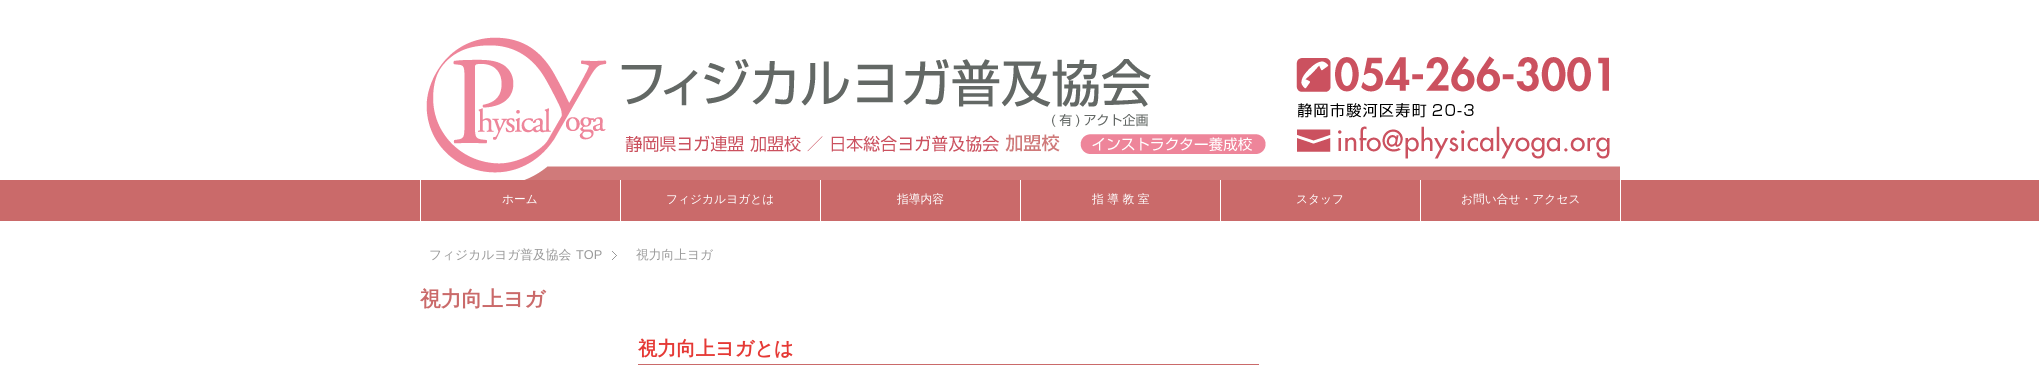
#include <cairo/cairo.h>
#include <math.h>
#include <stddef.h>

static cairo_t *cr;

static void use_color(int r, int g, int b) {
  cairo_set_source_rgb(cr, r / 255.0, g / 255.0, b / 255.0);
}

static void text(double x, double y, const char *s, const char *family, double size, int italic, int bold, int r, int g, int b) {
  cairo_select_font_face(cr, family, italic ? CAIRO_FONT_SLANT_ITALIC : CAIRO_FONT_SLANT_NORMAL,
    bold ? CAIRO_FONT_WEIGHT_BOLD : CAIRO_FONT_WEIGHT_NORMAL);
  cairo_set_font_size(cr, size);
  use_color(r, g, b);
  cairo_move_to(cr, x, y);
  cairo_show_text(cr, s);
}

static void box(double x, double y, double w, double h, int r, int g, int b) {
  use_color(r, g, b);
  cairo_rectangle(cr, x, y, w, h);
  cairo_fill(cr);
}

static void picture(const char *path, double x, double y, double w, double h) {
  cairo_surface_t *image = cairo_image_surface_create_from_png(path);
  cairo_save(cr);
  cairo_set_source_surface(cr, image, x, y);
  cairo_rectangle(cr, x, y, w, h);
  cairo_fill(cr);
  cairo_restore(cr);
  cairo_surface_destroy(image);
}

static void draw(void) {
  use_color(255, 255, 255);
  cairo_paint(cr);
  picture("img_01.png", 426, 37, 1194, 143);
  box(0, 180, 2039, 41, 202, 106, 106);
  box(420, 180, 1, 41, 255, 255, 255);
  box(620, 180, 1, 41, 255, 255, 255);
  box(820, 180, 1, 41, 255, 255, 255);
  box(1020, 180, 1, 41, 255, 255, 255);
  box(1220, 180, 1, 41, 255, 255, 255);
  box(1420, 180, 1, 41, 255, 255, 255);
  box(1620, 180, 1, 41, 255, 255, 255);
  picture("img_02.png", 612, 251, 5, 9);
  box(638, 364, 621, 1, 202, 106, 106);
  text(502, 203, "ホーム", "WenQuanYi Zen Hei Medium", 11.75, 0, 0, 255, 255, 255);
  text(666, 203, "フィジカルヨガとは", "WenQuanYi Zen Hei Medium", 11.75, 0, 0, 255, 255, 255);
  text(897, 203, "指導内容", "WenQuanYi Zen Hei Medium", 11.75, 0, 0, 255, 255, 255);
  text(1092, 203, "指 導 教 室", "WenQuanYi Zen Hei Medium", 11.75, 0, 0, 255, 255, 255);
  text(1296, 203, "スタッフ", "WenQuanYi Zen Hei Medium", 11.75, 0, 0, 255, 255, 255);
  text(1461, 203, "お問い合せ・アクセス", "WenQuanYi Zen Hei Medium", 11.75, 0, 0, 255, 255, 255);
  text(429, 259, "フィジカルヨガ普及協会", "WenQuanYi Zen Hei Medium", 12.75, 0, 0, 153, 153, 153);
  text(576, 259, "TOP", "Liberation Sans", 12.75, 0, 0, 153, 153, 153);
  text(636, 259, "視力向上ヨガ", "WenQuanYi Zen Hei Medium", 12.75, 0, 0, 153, 153, 153);
  text(420, 306, "視力向上ヨガ", "WenQuanYi Zen Hei", 20.75, 0, 1, 202, 106, 106);
  text(638, 355, "視力向上ヨガとは", "WenQuanYi Zen Hei", 19.25, 0, 1, 229, 57, 53);
}

int main(void) {
  cairo_surface_t *surface = cairo_image_surface_create(CAIRO_FORMAT_RGB24, 2039, 373);
  cr = cairo_create(surface);
  cairo_font_options_t *options = cairo_font_options_create();
  cairo_font_options_set_hint_metrics(options, CAIRO_HINT_METRICS_OFF);
  cairo_font_options_set_hint_style(options, CAIRO_HINT_STYLE_NONE);
  cairo_set_font_options(cr, options);
  cairo_set_miter_limit(cr, 4);
  draw();
  cairo_surface_write_to_png(surface, "out.png");
  cairo_font_options_destroy(options);
  cairo_destroy(cr);
  cairo_surface_destroy(surface);
  return 0;
}
